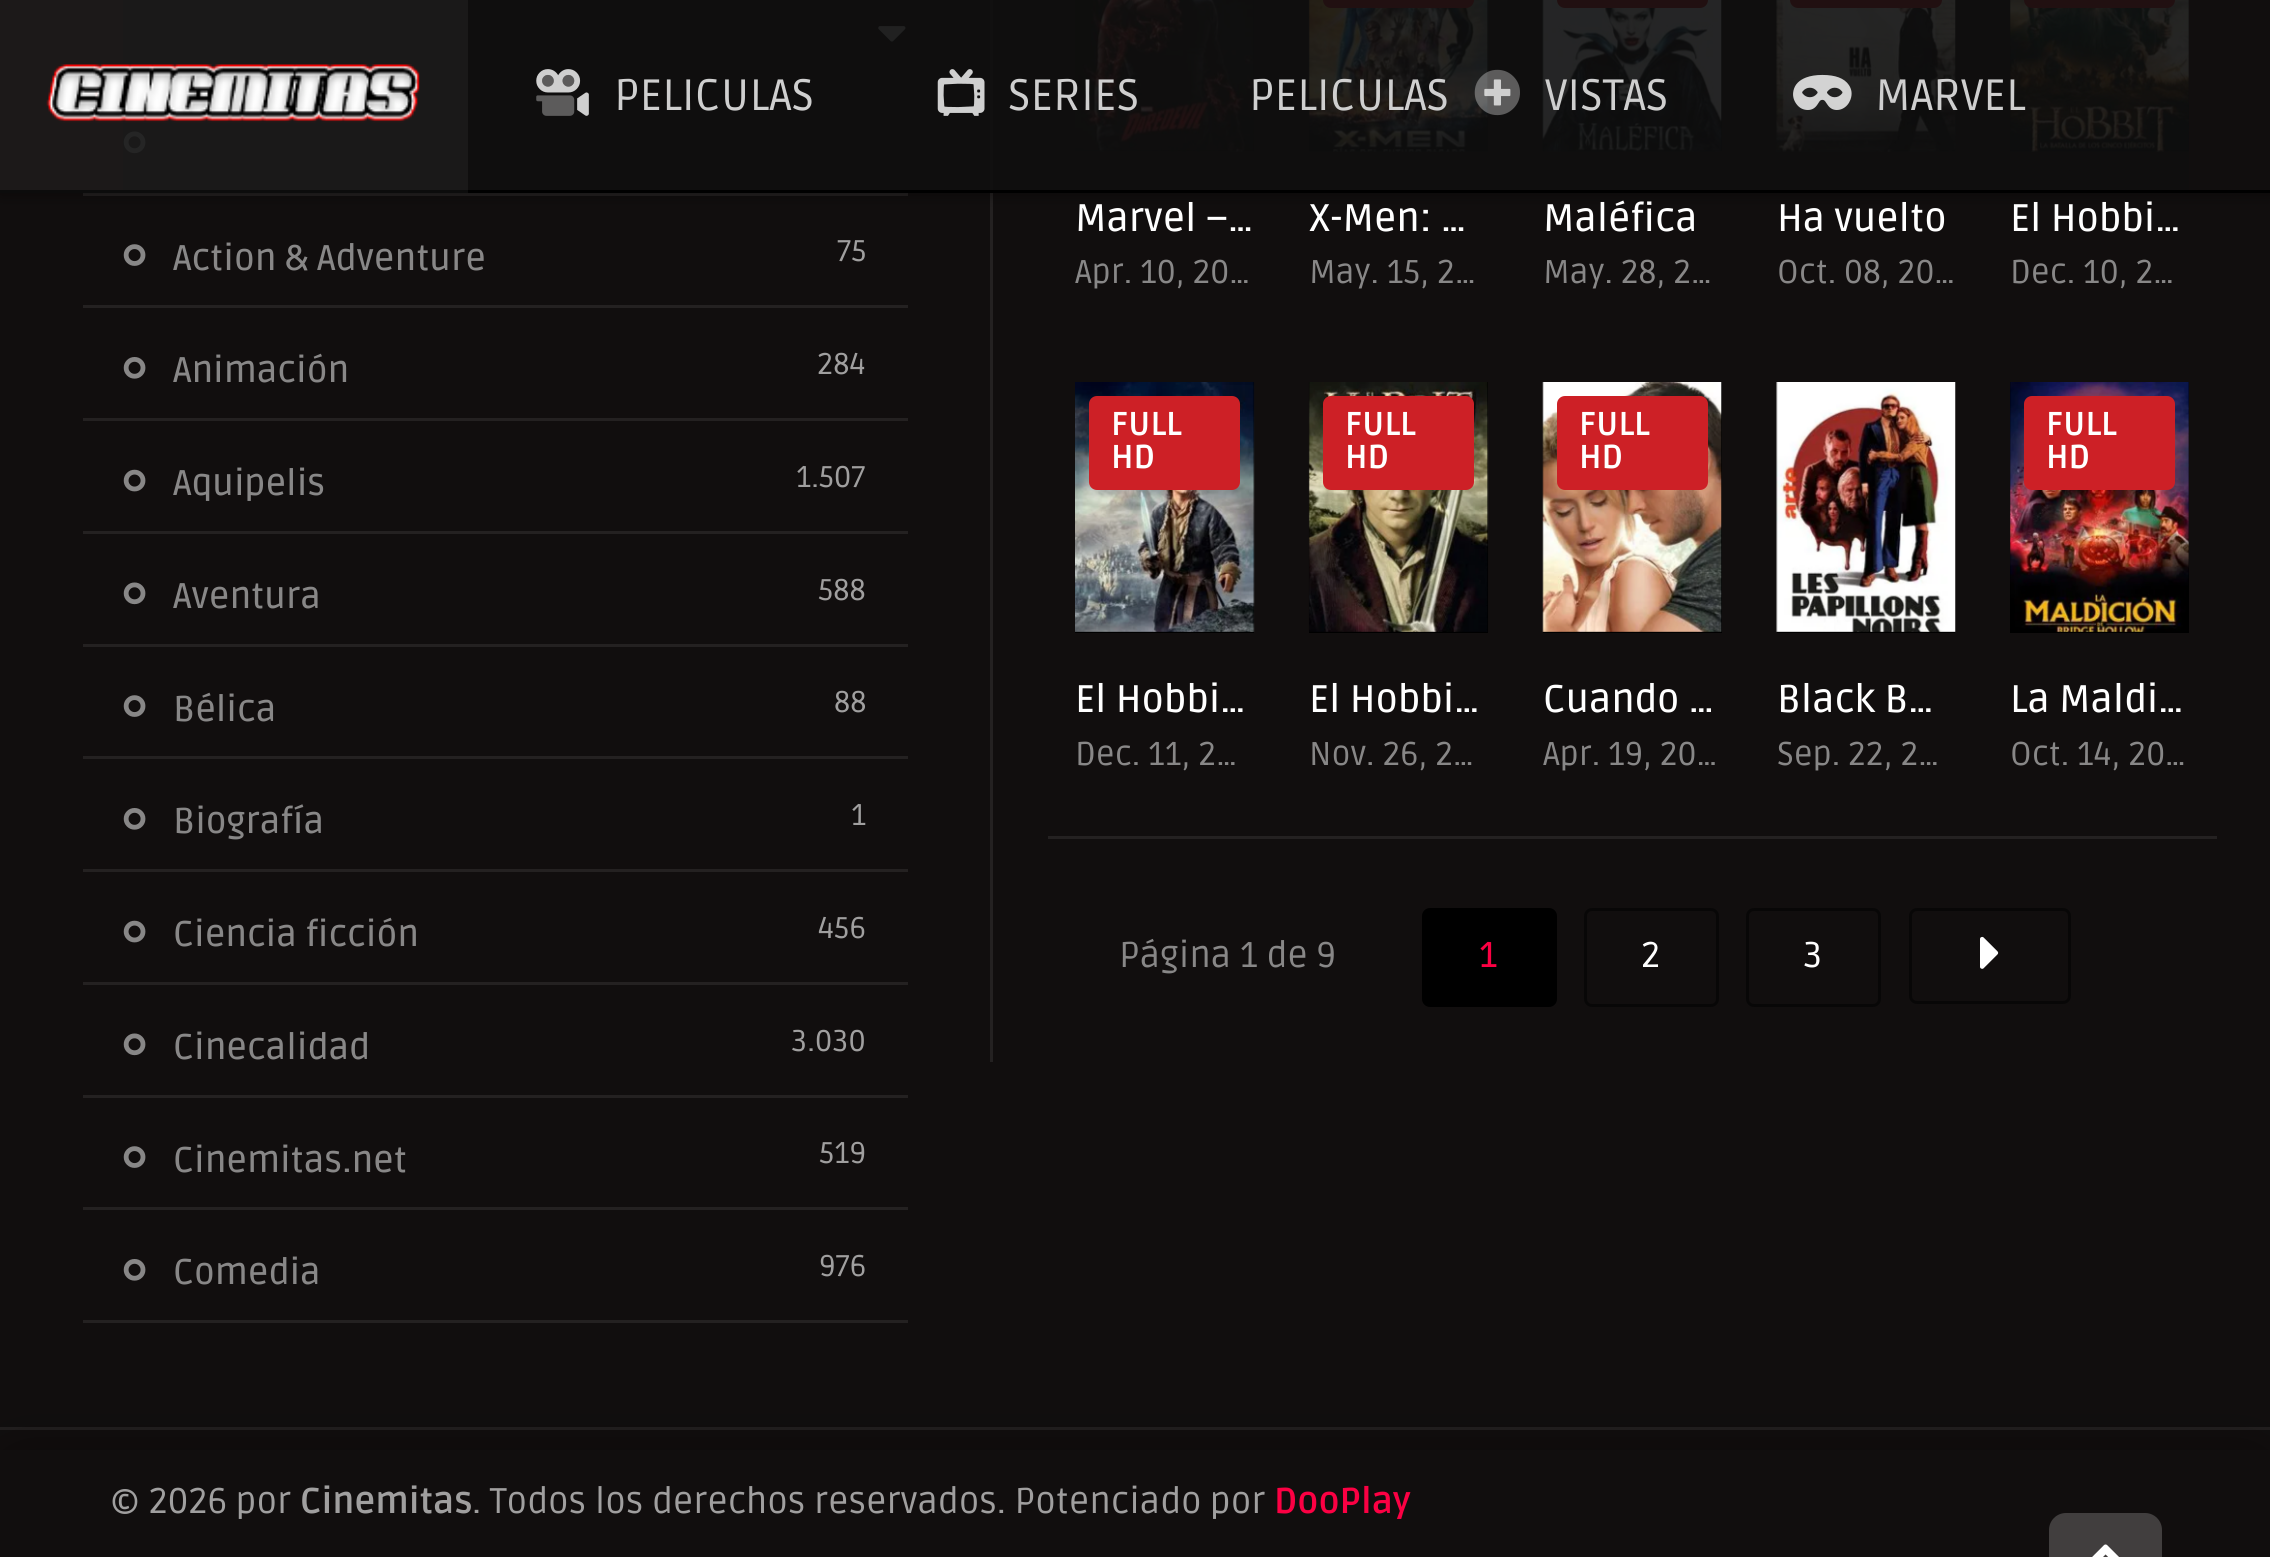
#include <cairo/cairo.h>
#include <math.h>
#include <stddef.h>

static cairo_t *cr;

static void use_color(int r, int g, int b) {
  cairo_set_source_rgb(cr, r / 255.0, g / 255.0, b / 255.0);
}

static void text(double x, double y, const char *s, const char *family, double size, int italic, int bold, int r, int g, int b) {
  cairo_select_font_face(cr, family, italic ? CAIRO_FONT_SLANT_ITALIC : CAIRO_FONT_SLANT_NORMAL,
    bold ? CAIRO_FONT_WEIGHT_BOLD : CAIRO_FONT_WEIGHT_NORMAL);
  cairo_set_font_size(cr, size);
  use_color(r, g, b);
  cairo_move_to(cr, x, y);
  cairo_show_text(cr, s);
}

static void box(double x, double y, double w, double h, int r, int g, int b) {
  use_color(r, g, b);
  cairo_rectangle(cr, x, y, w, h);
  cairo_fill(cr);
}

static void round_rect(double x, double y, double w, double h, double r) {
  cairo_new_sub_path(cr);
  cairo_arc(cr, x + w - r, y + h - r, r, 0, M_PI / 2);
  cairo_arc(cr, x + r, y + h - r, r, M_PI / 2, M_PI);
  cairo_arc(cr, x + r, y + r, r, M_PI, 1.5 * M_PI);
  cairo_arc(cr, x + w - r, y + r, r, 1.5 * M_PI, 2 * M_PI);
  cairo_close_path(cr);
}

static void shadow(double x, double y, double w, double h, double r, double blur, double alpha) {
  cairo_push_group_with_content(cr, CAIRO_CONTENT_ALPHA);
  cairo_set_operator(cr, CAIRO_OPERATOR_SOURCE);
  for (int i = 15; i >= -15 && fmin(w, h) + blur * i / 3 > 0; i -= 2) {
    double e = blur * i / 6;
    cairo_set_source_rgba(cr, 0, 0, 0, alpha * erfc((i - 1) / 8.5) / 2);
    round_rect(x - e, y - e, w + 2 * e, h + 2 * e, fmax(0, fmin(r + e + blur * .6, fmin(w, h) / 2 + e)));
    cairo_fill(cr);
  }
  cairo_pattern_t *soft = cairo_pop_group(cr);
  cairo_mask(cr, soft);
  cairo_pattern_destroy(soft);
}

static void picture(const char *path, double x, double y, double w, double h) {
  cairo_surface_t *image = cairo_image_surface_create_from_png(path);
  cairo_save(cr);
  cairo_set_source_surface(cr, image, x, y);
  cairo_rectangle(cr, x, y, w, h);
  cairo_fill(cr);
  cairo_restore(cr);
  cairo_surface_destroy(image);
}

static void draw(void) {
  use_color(17, 14, 14);
  cairo_paint(cr);
  picture("img_08.png", 878, 26, 28, 16);
  box(83, 193, 825, 3, 36, 33, 33);
  picture("img_09.png", 123, 131, 23, 23);
  box(990, 0, 3, 1062, 36, 33, 33);
  box(1075, 0, 179, 151, 0, 0, 0);
  picture("img_13.png", 1075, 0, 179, 152);
  box(1309, 0, 179, 151, 0, 0, 0);
  picture("img_14.png", 1308, 0, 181, 152);
  use_color(205, 32, 38);
  round_rect(1323, -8, 151, 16, 8);
  cairo_fill(cr);
  box(1543, 0, 179, 151, 0, 0, 0);
  picture("img_15.png", 1542, 0, 180, 152);
  use_color(205, 32, 38);
  round_rect(1557, -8, 151, 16, 8);
  cairo_fill(cr);
  box(1777, 0, 178, 151, 0, 0, 0);
  picture("img_16.png", 1776, 0, 180, 152);
  use_color(205, 32, 38);
  round_rect(1790, -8, 152, 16, 8);
  cairo_fill(cr);
  box(2010, 0, 179, 151, 0, 0, 0);
  picture("img_17.png", 2010, 0, 179, 152);
  use_color(205, 32, 38);
  round_rect(2024, -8, 151, 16, 8);
  cairo_fill(cr);
  cairo_save(cr);
  cairo_rectangle(cr, 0, 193, 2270, 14);
  cairo_clip(cr);
  use_color(0, 0, 0);
  shadow(0, 3, 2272, 192, 0, 7, 0.4);
  cairo_restore(cr);
  cairo_set_source_rgba(cr, 0.059, 0.059, 0.059, 0.9);
  cairo_rectangle(cr, 123, 0, 2066, 190);
  cairo_fill(cr);
  box(0, 190, 2270, 3, 0, 0, 0);
  cairo_set_source_rgba(cr, 1, 1, 1, 0.05);
  cairo_rectangle(cr, 0, 0, 468, 193);
  cairo_fill(cr);
  picture("img_01.png", 46, 64, 374, 59);
  picture("img_02.png", 536, 69, 53, 47);
  picture("img_03.png", 536, 75, 39, 41);
  picture("img_04.png", 937, 69, 48, 47);
  picture("img_06.png", 1484, 79, 27, 27);
  picture("img_05.png", 1474, 69, 46, 47);
  picture("img_07.png", 1793, 74, 59, 36);
  box(0, 1427, 2270, 3, 34, 31, 31);
  box(83, 305, 825, 3, 36, 33, 33);
  picture("img_10.png", 123, 244, 23, 22);
  box(83, 418, 825, 3, 36, 33, 33);
  picture("img_11.png", 123, 357, 23, 22);
  box(83, 531, 825, 3, 36, 33, 33);
  picture("img_12.png", 123, 469, 23, 23);
  box(83, 644, 825, 3, 36, 33, 33);
  picture("img_09.png", 123, 582, 23, 23);
  box(83, 756, 825, 3, 36, 33, 33);
  picture("img_10.png", 123, 695, 23, 22);
  box(83, 869, 825, 3, 36, 33, 33);
  picture("img_11.png", 123, 808, 23, 22);
  box(83, 982, 825, 3, 36, 33, 33);
  picture("img_12.png", 123, 920, 23, 23);
  box(83, 1095, 825, 3, 36, 33, 33);
  picture("img_09.png", 123, 1033, 23, 23);
  box(83, 1207, 825, 3, 36, 33, 33);
  picture("img_10.png", 123, 1146, 23, 22);
  box(83, 1320, 825, 3, 36, 33, 33);
  picture("img_11.png", 123, 1259, 23, 22);
  box(1048, 836, 1169, 3, 36, 33, 33);
  box(1075, 382, 179, 251, 0, 0, 0);
  picture("img_18.png", 1075, 382, 180, 250);
  use_color(205, 32, 38);
  round_rect(1089, 396, 151, 94, 8);
  cairo_fill(cr);
  box(1309, 382, 179, 251, 0, 0, 0);
  picture("img_19.png", 1308, 382, 181, 250);
  use_color(205, 32, 38);
  round_rect(1323, 396, 151, 94, 8);
  cairo_fill(cr);
  box(1543, 382, 179, 251, 0, 0, 0);
  picture("img_20.png", 1542, 382, 180, 250);
  use_color(205, 32, 38);
  round_rect(1557, 396, 151, 94, 8);
  cairo_fill(cr);
  box(1777, 382, 178, 251, 0, 0, 0);
  picture("img_21.png", 1776, 382, 180, 250);
  box(2010, 382, 179, 251, 0, 0, 0);
  picture("img_22.png", 2010, 382, 179, 250);
  use_color(205, 32, 38);
  round_rect(2024, 396, 151, 94, 8);
  cairo_fill(cr);
  use_color(0, 0, 0);
  round_rect(1423.5, 909.5, 132, 96, 6.5);
  cairo_fill_preserve(cr);
  cairo_set_line_width(cr, 3);
  cairo_stroke(cr);
  round_rect(1585.5, 909.5, 132, 96, 6.5);
  use_color(8, 7, 7);
  cairo_stroke(cr);
  round_rect(1747.5, 909.5, 132, 96, 6.5);
  cairo_stroke(cr);
  round_rect(1910.5, 909.5, 159, 93, 6.5);
  cairo_stroke(cr);
  picture("img_23.png", 1980, 936, 19, 33);
  use_color(0, 0, 0);
  shadow(19, 1477, 2233, 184, 0, 34.5, 0.7);
  box(0, 1450, 2270, 107, 17, 14, 14);
  use_color(65, 62, 62);
  round_rect(2049, 1513, 113, 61, 17);
  cairo_fill(cr);
  picture("img_24.png", 2092, 1544, 27, 13);
  text(614, 110, "PELICULAS", "Ruda", 44, 0, 0, 207, 207, 207);
  text(1008, 110, "SERIES", "Ruda", 44, 0, 0, 207, 207, 207);
  text(1249, 110, "PELICULAS", "Ruda", 44, 0, 0, 207, 207, 207);
  text(1545, 110, "VISTAS", "Ruda", 44, 0, 0, 207, 207, 207);
  text(1875, 110, "MARVEL", "Ruda", 44, 0, 0, 207, 207, 207);
  text(173, 270, "Action & Adventure", "Ruda Medium", 35.75, 0, 0, 136, 135, 135);
  text(837, 261, "75", "Ruda", 30, 0, 0, 160, 159, 159);
  text(173, 382, "Animación", "Ruda Medium", 35.75, 0, 0, 136, 135, 135);
  text(817, 374, "284", "Ruda", 30, 0, 0, 160, 159, 159);
  text(173, 495, "Aquipelis", "Ruda Medium", 35.75, 0, 0, 136, 135, 135);
  text(796, 487, "1.507", "Ruda", 30, 0, 0, 160, 159, 159);
  text(173, 608, "Aventura", "Ruda Medium", 35.75, 0, 0, 136, 135, 135);
  text(818, 600, "588", "Ruda", 30, 0, 0, 160, 159, 159);
  text(173, 721, "Bélica", "Ruda Medium", 35.75, 0, 0, 136, 135, 135);
  text(834, 712, "88", "Ruda", 30, 0, 0, 160, 159, 159);
  text(173, 833, "Biografía", "Ruda Medium", 35.75, 0, 0, 136, 135, 135);
  text(851, 825, "1", "Ruda", 30, 0, 0, 160, 159, 159);
  text(173, 946, "Ciencia ficción", "Ruda Medium", 35.75, 0, 0, 136, 135, 135);
  text(818, 938, "456", "Ruda", 30, 0, 0, 160, 159, 159);
  text(173, 1059, "Cinecalidad", "Ruda Medium", 35.75, 0, 0, 136, 135, 135);
  text(791, 1051, "3.030", "Ruda", 30, 0, 0, 160, 159, 159);
  text(173, 1172, "Cinemitas.net", "Ruda Medium", 35.75, 0, 0, 136, 135, 135);
  text(819, 1163, "519", "Ruda", 30, 0, 0, 160, 159, 159);
  text(173, 1284, "Comedia", "Ruda Medium", 35.75, 0, 0, 136, 135, 135);
  text(819, 1276, "976", "Ruda", 30, 0, 0, 160, 159, 159);
  text(1075, 231, "Marvel –…", "Ruda Medium", 38.5, 0, 0, 255, 255, 255);
  text(1075, 283, "Apr. 10, 20…", "Ruda", 33, 0, 0, 136, 135, 135);
  text(1309, 231, "X-Men: …", "Ruda Medium", 38.5, 0, 0, 255, 255, 255);
  text(1309, 283, "May. 15, 2…", "Ruda", 33, 0, 0, 136, 135, 135);
  text(1543, 231, "Maléfica", "Ruda Medium", 38.5, 0, 0, 255, 255, 255);
  text(1543, 283, "May. 28, 2…", "Ruda", 33, 0, 0, 136, 135, 135);
  text(1777, 231, "Ha vuelto", "Ruda Medium", 38.5, 0, 0, 255, 255, 255);
  text(1777, 283, "Oct. 08, 20…", "Ruda", 33, 0, 0, 136, 135, 135);
  text(2010, 231, "El Hobbi…", "Ruda Medium", 38.5, 0, 0, 255, 255, 255);
  text(2010, 283, "Dec. 10, 2…", "Ruda", 33, 0, 0, 136, 135, 135);
  text(1111, 435, "FULL", "Ruda", 33, 0, 1, 255, 255, 255);
  text(1111, 468, "HD", "Ruda", 33, 0, 1, 255, 255, 255);
  text(1075, 712, "El Hobbi…", "Ruda Medium", 38.5, 0, 0, 255, 255, 255);
  text(1075, 765, "Dec. 11, 2…", "Ruda", 33, 0, 0, 136, 135, 135);
  text(1345, 435, "FULL", "Ruda", 33, 0, 1, 255, 255, 255);
  text(1345, 468, "HD", "Ruda", 33, 0, 1, 255, 255, 255);
  text(1309, 712, "El Hobbi…", "Ruda Medium", 38.5, 0, 0, 255, 255, 255);
  text(1309, 765, "Nov. 26, 2…", "Ruda", 33, 0, 0, 136, 135, 135);
  text(1579, 435, "FULL", "Ruda", 33, 0, 1, 255, 255, 255);
  text(1579, 468, "HD", "Ruda", 33, 0, 1, 255, 255, 255);
  text(1543, 712, "Cuando …", "Ruda Medium", 38.5, 0, 0, 255, 255, 255);
  text(1543, 765, "Apr. 19, 20…", "Ruda", 33, 0, 0, 136, 135, 135);
  text(1777, 712, "Black B…", "Ruda Medium", 38.5, 0, 0, 255, 255, 255);
  text(1777, 765, "Sep. 22, 2…", "Ruda", 33, 0, 0, 136, 135, 135);
  text(2046, 435, "FULL", "Ruda", 33, 0, 1, 255, 255, 255);
  text(2046, 468, "HD", "Ruda", 33, 0, 1, 255, 255, 255);
  text(2010, 712, "La Maldi…", "Ruda Medium", 38.5, 0, 0, 255, 255, 255);
  text(2010, 765, "Oct. 14, 20…", "Ruda", 33, 0, 0, 136, 135, 135);
  text(1119, 967, "Página 1 de 9", "Ruda", 35.75, 0, 0, 136, 135, 135);
  text(1479, 967, "1", "Ruda Medium", 35.75, 0, 0, 252, 0, 67);
  text(1641, 967, "2", "Ruda", 35.75, 0, 0, 255, 255, 255);
  text(1803, 967, "3", "Ruda", 35.75, 0, 0, 255, 255, 255);
  text(110, 1513, "© 2026 por", "Ruda", 35.75, 0, 0, 160, 159, 159);
  text(300, 1513, "Cinemitas", "Ruda", 35.75, 0, 1, 160, 159, 159);
  text(472, 1513, ". Todos los derechos reservados. Potenciado por", "Ruda", 35.75, 0, 0, 160, 159, 159);
  text(1274, 1513, "DooPlay", "Ruda", 35.75, 0, 1, 252, 0, 67);
}

int main(void) {
  cairo_surface_t *surface = cairo_image_surface_create(CAIRO_FORMAT_RGB24, 2270, 1557);
  cr = cairo_create(surface);
  cairo_font_options_t *options = cairo_font_options_create();
  cairo_font_options_set_hint_metrics(options, CAIRO_HINT_METRICS_OFF);
  cairo_font_options_set_hint_style(options, CAIRO_HINT_STYLE_NONE);
  cairo_set_font_options(cr, options);
  cairo_set_miter_limit(cr, 4);
  draw();
  cairo_surface_write_to_png(surface, "out.png");
  cairo_font_options_destroy(options);
  cairo_destroy(cr);
  cairo_surface_destroy(surface);
  return 0;
}
